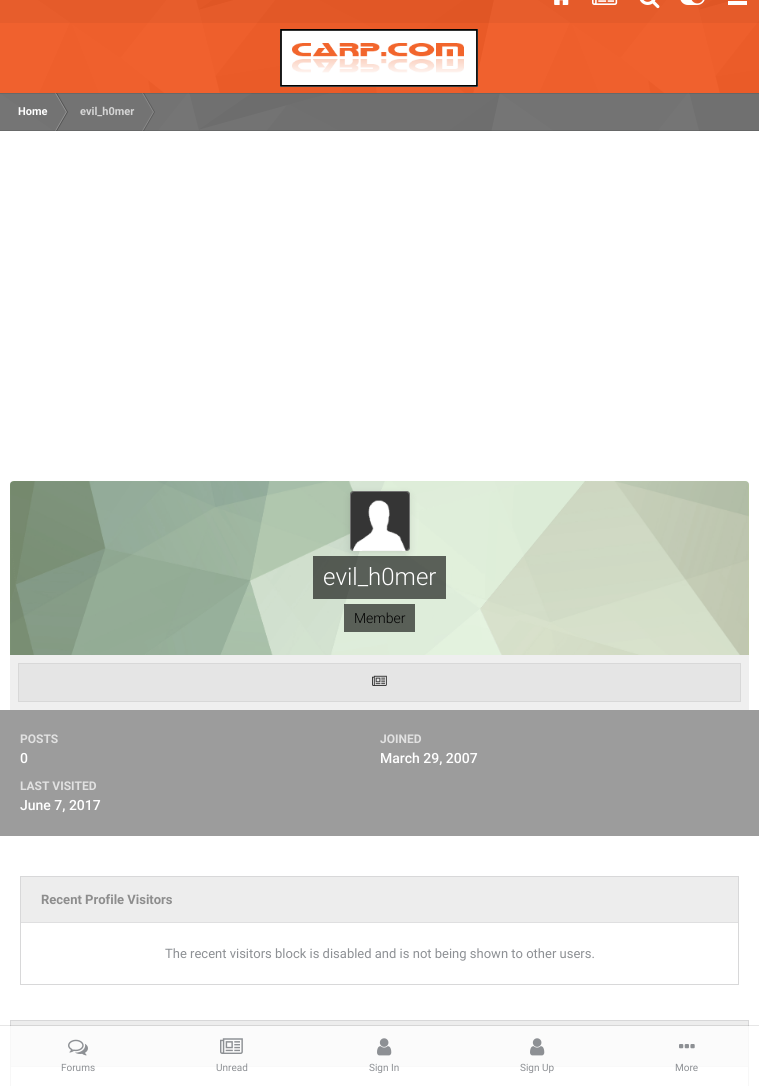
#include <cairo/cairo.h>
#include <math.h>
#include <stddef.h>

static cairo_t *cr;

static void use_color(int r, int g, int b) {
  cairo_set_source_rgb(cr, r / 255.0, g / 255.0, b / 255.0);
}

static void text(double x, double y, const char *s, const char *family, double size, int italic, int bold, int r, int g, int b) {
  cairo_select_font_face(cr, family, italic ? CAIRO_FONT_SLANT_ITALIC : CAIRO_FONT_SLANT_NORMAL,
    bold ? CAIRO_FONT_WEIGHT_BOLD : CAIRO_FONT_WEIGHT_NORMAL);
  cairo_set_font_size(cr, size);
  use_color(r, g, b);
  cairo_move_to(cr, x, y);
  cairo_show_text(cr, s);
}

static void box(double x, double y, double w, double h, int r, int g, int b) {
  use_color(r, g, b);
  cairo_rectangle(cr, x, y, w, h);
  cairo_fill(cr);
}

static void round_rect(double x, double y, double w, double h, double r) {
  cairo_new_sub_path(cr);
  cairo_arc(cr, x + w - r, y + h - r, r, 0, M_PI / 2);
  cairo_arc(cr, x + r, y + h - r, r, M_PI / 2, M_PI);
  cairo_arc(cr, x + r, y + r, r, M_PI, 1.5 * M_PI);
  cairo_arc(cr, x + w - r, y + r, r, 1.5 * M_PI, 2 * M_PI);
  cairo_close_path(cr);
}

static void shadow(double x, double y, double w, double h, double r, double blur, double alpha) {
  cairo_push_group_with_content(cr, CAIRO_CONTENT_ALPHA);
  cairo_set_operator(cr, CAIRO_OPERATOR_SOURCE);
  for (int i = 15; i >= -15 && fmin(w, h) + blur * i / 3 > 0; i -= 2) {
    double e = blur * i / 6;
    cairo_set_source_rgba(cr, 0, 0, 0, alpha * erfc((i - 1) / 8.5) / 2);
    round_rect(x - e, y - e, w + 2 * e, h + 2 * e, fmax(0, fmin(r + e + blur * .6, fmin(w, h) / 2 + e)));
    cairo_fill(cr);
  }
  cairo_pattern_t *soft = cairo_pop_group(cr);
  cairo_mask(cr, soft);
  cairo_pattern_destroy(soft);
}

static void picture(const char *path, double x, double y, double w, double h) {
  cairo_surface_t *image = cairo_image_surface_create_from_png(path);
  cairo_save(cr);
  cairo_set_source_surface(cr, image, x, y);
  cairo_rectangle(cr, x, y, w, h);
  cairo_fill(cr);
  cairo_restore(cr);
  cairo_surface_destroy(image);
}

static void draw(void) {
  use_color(255, 255, 255);
  cairo_paint(cr);
  box(0, 0, 759, 93, 241, 91, 37);
  picture("img_01.png", 0, 0, 759, 93);
  cairo_set_source_rgba(cr, 0, 0, 0, 0.04);
  cairo_rectangle(cr, 0, 0, 759, 23);
  cairo_fill(cr);
  picture("img_02.png", 554, 0, 15, 5);
  picture("img_03.png", 592, 0, 26, 5);
  picture("img_04.png", 639, 0, 21, 9);
  picture("img_05.png", 680, 0, 25, 5);
  box(728, 1, 19, 4, 255, 255, 255);
  picture("img_06.png", 280, 29, 198, 58);
  box(0, 93, 759, 38, 112, 112, 112);
  picture("img_07.png", 0, 93, 699, 38);
  use_color(150, 150, 150);
  cairo_new_path(cr);
  cairo_move_to(cr, 55, 93);
  cairo_line_to(cr, 56, 93);
  cairo_line_to(cr, 67, 112);
  cairo_line_to(cr, 66, 112);
  cairo_close_path(cr);
  cairo_fill(cr);
  cairo_set_source_rgba(cr, 0, 0, 0, 0.3);
  cairo_new_path(cr);
  cairo_move_to(cr, 56, 93);
  cairo_line_to(cr, 57, 93);
  cairo_line_to(cr, 68, 112);
  cairo_line_to(cr, 67, 112);
  cairo_close_path(cr);
  cairo_fill(cr);
  use_color(140, 140, 140);
  cairo_new_path(cr);
  cairo_move_to(cr, 142, 93);
  cairo_line_to(cr, 143, 93);
  cairo_line_to(cr, 154, 112);
  cairo_line_to(cr, 153, 112);
  cairo_close_path(cr);
  cairo_fill(cr);
  cairo_set_source_rgba(cr, 0.137, 0.137, 0.137, 0.3);
  cairo_new_path(cr);
  cairo_move_to(cr, 143, 93);
  cairo_line_to(cr, 144, 93);
  cairo_line_to(cr, 155, 112);
  cairo_line_to(cr, 154, 112);
  cairo_close_path(cr);
  cairo_fill(cr);
  cairo_set_source_rgba(cr, 0.227, 0.239, 0.251, 0.2);
  cairo_rectangle(cr, 0, 93, 759, 1);
  cairo_fill(cr);
  use_color(150, 150, 150);
  cairo_new_path(cr);
  cairo_move_to(cr, 55, 131);
  cairo_line_to(cr, 56, 131);
  cairo_line_to(cr, 67, 112);
  cairo_line_to(cr, 66, 112);
  cairo_close_path(cr);
  cairo_fill(cr);
  cairo_set_source_rgba(cr, 0, 0, 0, 0.3);
  cairo_new_path(cr);
  cairo_move_to(cr, 56, 131);
  cairo_line_to(cr, 57, 131);
  cairo_line_to(cr, 68, 112);
  cairo_line_to(cr, 67, 112);
  cairo_close_path(cr);
  cairo_fill(cr);
  use_color(140, 140, 140);
  cairo_new_path(cr);
  cairo_move_to(cr, 142, 131);
  cairo_line_to(cr, 143, 131);
  cairo_line_to(cr, 154, 112);
  cairo_line_to(cr, 153, 112);
  cairo_close_path(cr);
  cairo_fill(cr);
  cairo_set_source_rgba(cr, 0.137, 0.137, 0.137, 0.3);
  cairo_new_path(cr);
  cairo_move_to(cr, 143, 131);
  cairo_line_to(cr, 144, 131);
  cairo_line_to(cr, 155, 112);
  cairo_line_to(cr, 154, 112);
  cairo_close_path(cr);
  cairo_fill(cr);
  cairo_set_source_rgba(cr, 0.227, 0.239, 0.251, 0.2);
  cairo_rectangle(cr, 0, 130, 759, 1);
  cairo_fill(cr);
  use_color(182, 255, 153);
  cairo_new_path(cr);
  cairo_move_to(cr, 14, 481);
  cairo_line_to(cr, 745, 481);
  cairo_curve_to(cr, 747, 481, 749, 483, 749, 485);
  cairo_line_to(cr, 749, 655);
  cairo_line_to(cr, 10, 655);
  cairo_line_to(cr, 10, 485);
  cairo_curve_to(cr, 10, 483, 12, 481, 14, 481);
  cairo_close_path(cr);
  cairo_fill(cr);
  picture("img_08.png", 10, 481, 739, 174);
  picture("img_09.png", 350, 491, 60, 60);
  cairo_set_source_rgba(cr, 0, 0, 0, 0.6);
  cairo_rectangle(cr, 313, 556, 133, 43);
  cairo_fill(cr);
  cairo_save(cr);
  cairo_set_fill_rule(cr, CAIRO_FILL_RULE_EVEN_ODD);
  cairo_new_path(cr);
  cairo_move_to(cr, 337, 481);
  cairo_line_to(cr, 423, 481);
  cairo_line_to(cr, 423, 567);
  cairo_line_to(cr, 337, 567);
  cairo_close_path(cr);
  cairo_move_to(cr, 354, 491);
  cairo_line_to(cr, 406, 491);
  cairo_curve_to(cr, 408, 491, 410, 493, 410, 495);
  cairo_line_to(cr, 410, 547);
  cairo_curve_to(cr, 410, 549, 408, 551, 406, 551);
  cairo_line_to(cr, 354, 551);
  cairo_curve_to(cr, 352, 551, 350, 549, 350, 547);
  cairo_line_to(cr, 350, 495);
  cairo_curve_to(cr, 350, 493, 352, 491, 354, 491);
  cairo_close_path(cr);
  cairo_clip(cr);
  use_color(0, 0, 0);
  shadow(350, 494, 60, 60, 4, 4, 0.1);
  cairo_restore(cr);
  round_rect(350.5, 491.5, 59, 59, 3.5);
  cairo_set_source_rgba(cr, 1, 1, 1, 0.3);
  cairo_set_line_width(cr, 1);
  cairo_stroke(cr);
  cairo_set_source_rgba(cr, 0, 0, 0, 0.6);
  cairo_rectangle(cr, 344, 604, 71, 28);
  cairo_fill(cr);
  box(10, 655, 739, 55, 239, 239, 239);
  use_color(229, 229, 229);
  cairo_rectangle(cr, 18.5, 663.5, 722, 38);
  cairo_fill_preserve(cr);
  use_color(216, 216, 216);
  cairo_stroke(cr);
  picture("img_10.png", 372, 675, 15, 11);
  box(0, 710, 759, 126, 156, 156, 156);
  cairo_rectangle(cr, 20.5, 876.5, 718, 108);
  use_color(216, 216, 217);
  cairo_stroke(cr);
  box(21, 877, 717, 45, 237, 237, 237);
  box(21, 922, 717, 1, 223, 223, 224);
  cairo_rectangle(cr, 10.5, 1020.5, 738, 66);
  use_color(216, 216, 217);
  cairo_stroke(cr);
  box(11, 1021, 737, 45, 237, 237, 237);
  box(11, 1066, 737, 1, 223, 223, 224);
  cairo_set_source_rgba(cr, 0, 0, 0, 0.1);
  cairo_rectangle(cr, 0, 1025, 759, 1);
  cairo_fill(cr);
  cairo_set_source_rgba(cr, 1, 1, 1, 0.8);
  cairo_rectangle(cr, 10, 1026, 739, 60);
  cairo_fill(cr);
  picture("img_11.png", 68, 1039, 20, 17);
  picture("img_12.png", 220, 1038, 23, 16);
  picture("img_13.png", 377, 1038, 15, 18);
  picture("img_13.png", 530, 1038, 15, 18);
  picture("img_14.png", 679, 1044, 16, 5);
  text(18, 115, "Home", "Roboto", 11, 0, 1, 255, 255, 255);
  text(80, 115, "evil_h0mer", "Roboto", 11, 0, 1, 213, 213, 213);
  text(323, 585, "evil_h0mer", "Roboto Light", 24, 0, 0, 255, 255, 255);
  text(354, 623, "Member", "Roboto Light", 14, 0, 0, 0, 0, 0);
  text(20, 743, "POSTS", "Roboto", 12, 0, 1, 225, 225, 225);
  text(20, 763, "0", "Roboto Medium", 14, 0, 0, 255, 255, 255);
  text(380, 743, "JOINED", "Roboto", 12, 0, 1, 225, 225, 225);
  text(380, 763, "March 29, 2007", "Roboto Medium", 14, 0, 0, 255, 255, 255);
  text(20, 790, "LAST VISITED", "Roboto", 12, 0, 1, 225, 225, 225);
  text(20, 810, "June 7, 2017", "Roboto Medium", 14, 0, 0, 255, 255, 255);
  text(41, 904, "Recent Profile Visitors", "Roboto", 13, 0, 1, 141, 141, 141);
  text(165, 958, "The recent visitors block is disabled and is not being shown to other users.", "Roboto", 13, 0, 0, 141, 144, 148);
  text(61, 1071, "Forums", "Roboto", 10, 0, 0, 141, 144, 148);
  text(216, 1071, "Unread", "Roboto", 10, 0, 0, 141, 144, 148);
  text(369, 1071, "Sign In", "Roboto", 10, 0, 0, 141, 144, 148);
  text(520, 1071, "Sign Up", "Roboto", 10, 0, 0, 141, 144, 148);
  text(675, 1071, "More", "Roboto", 10, 0, 0, 141, 144, 148);
}

int main(void) {
  cairo_surface_t *surface = cairo_image_surface_create(CAIRO_FORMAT_RGB24, 759, 1086);
  cr = cairo_create(surface);
  cairo_font_options_t *options = cairo_font_options_create();
  cairo_font_options_set_hint_metrics(options, CAIRO_HINT_METRICS_OFF);
  cairo_font_options_set_hint_style(options, CAIRO_HINT_STYLE_NONE);
  cairo_set_font_options(cr, options);
  cairo_set_miter_limit(cr, 4);
  draw();
  cairo_surface_write_to_png(surface, "out.png");
  cairo_font_options_destroy(options);
  cairo_destroy(cr);
  cairo_surface_destroy(surface);
  return 0;
}
